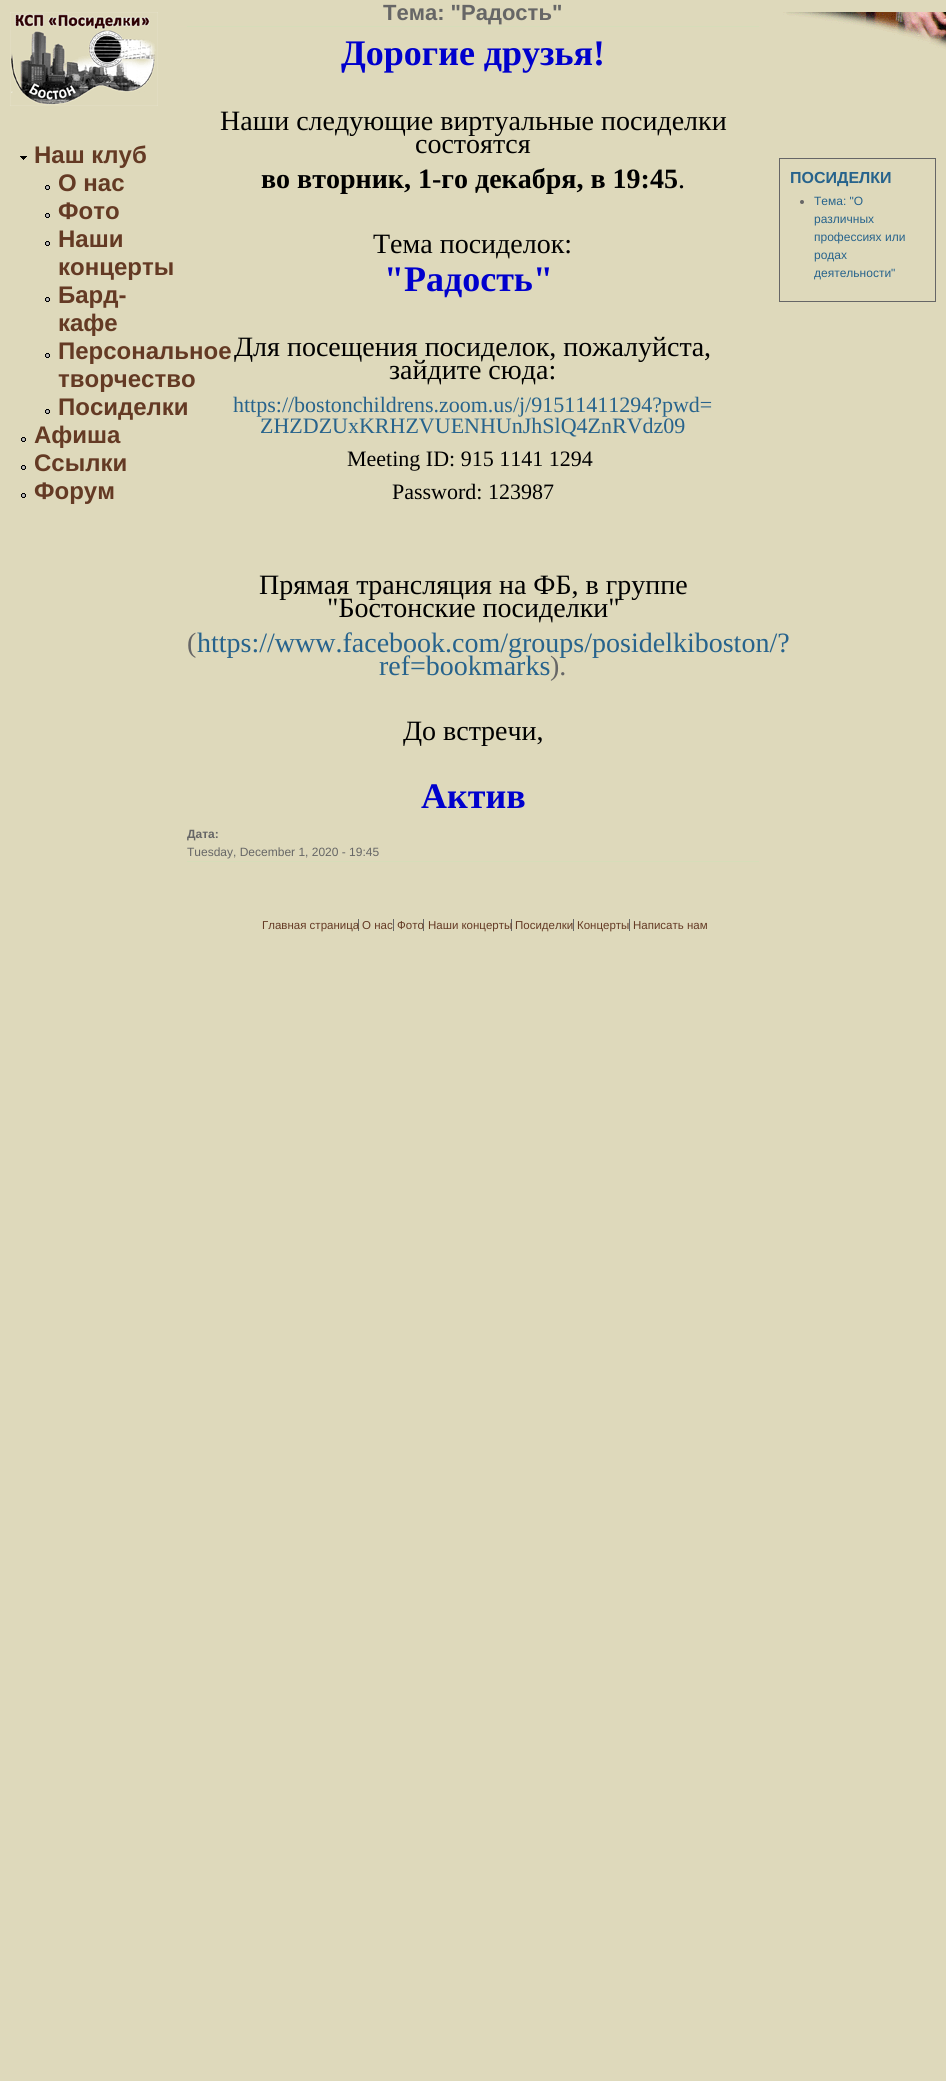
#include <cairo/cairo.h>
#include <math.h>
#include <stddef.h>

static cairo_t *cr;

static void use_color(int r, int g, int b) {
  cairo_set_source_rgb(cr, r / 255.0, g / 255.0, b / 255.0);
}

static void text(double x, double y, const char *s, const char *family, double size, int italic, int bold, int r, int g, int b) {
  cairo_select_font_face(cr, family, italic ? CAIRO_FONT_SLANT_ITALIC : CAIRO_FONT_SLANT_NORMAL,
    bold ? CAIRO_FONT_WEIGHT_BOLD : CAIRO_FONT_WEIGHT_NORMAL);
  cairo_set_font_size(cr, size);
  use_color(r, g, b);
  cairo_move_to(cr, x, y);
  cairo_show_text(cr, s);
}

static void box(double x, double y, double w, double h, int r, int g, int b) {
  use_color(r, g, b);
  cairo_rectangle(cr, x, y, w, h);
  cairo_fill(cr);
}

static void picture(const char *path, double x, double y, double w, double h) {
  cairo_surface_t *image = cairo_image_surface_create_from_png(path);
  cairo_save(cr);
  cairo_set_source_surface(cr, image, x, y);
  cairo_rectangle(cr, x, y, w, h);
  cairo_fill(cr);
  cairo_restore(cr);
  cairo_surface_destroy(image);
}

static void draw(void) {
  use_color(222, 217, 187);
  cairo_paint(cr);
  picture("img_01.png", 10, 12, 148, 94);
  picture("img_02.png", 20, 156, 7, 4);
  picture("img_03.png", 45, 185, 5, 5);
  picture("img_03.png", 45, 213, 5, 5);
  picture("img_03.png", 45, 241, 5, 5);
  picture("img_03.png", 45, 297, 5, 5);
  picture("img_03.png", 45, 353, 5, 5);
  picture("img_03.png", 45, 409, 5, 5);
  picture("img_03.png", 21, 437, 5, 5);
  picture("img_03.png", 21, 465, 5, 5);
  picture("img_03.png", 21, 493, 5, 5);
  box(187, 26, 572, 1, 214, 221, 185);
  box(187, 861, 572, 1, 214, 221, 185);
  picture("img_04.png", 783, 12, 163, 38);
  cairo_rectangle(cr, 779.5, 158.5, 156, 143);
  use_color(102, 102, 102);
  cairo_set_line_width(cr, 1);
  cairo_stroke(cr);
  cairo_arc(cr, 802, 202, 2, 0, 2 * M_PI);
  cairo_fill(cr);
  box(358, 919, 1, 12, 102, 102, 102);
  box(393, 919, 1, 12, 102, 102, 102);
  box(423, 919, 1, 12, 102, 102, 102);
  box(511, 919, 1, 12, 102, 102, 102);
  box(573, 919, 1, 12, 102, 102, 102);
  box(629, 919, 1, 12, 102, 102, 102);
  text(34, 163, "Наш клуб", "Liberation Sans", 24, 0, 1, 100, 58, 36);
  text(58, 191, "О нас", "Liberation Sans", 24, 0, 1, 100, 58, 36);
  text(58, 219, "Фото", "Liberation Sans", 24, 0, 1, 100, 58, 36);
  text(58, 247, "Наши", "Liberation Sans", 24, 0, 1, 100, 58, 36);
  text(58, 275, "концерты", "Liberation Sans", 24, 0, 1, 100, 58, 36);
  text(58, 303, "Бард-", "Liberation Sans", 24, 0, 1, 100, 58, 36);
  text(58, 331, "кафе", "Liberation Sans", 24, 0, 1, 100, 58, 36);
  text(58, 359, "Персональное", "Liberation Sans", 24, 0, 1, 100, 58, 36);
  text(58, 387, "творчество", "Liberation Sans", 24, 0, 1, 100, 58, 36);
  text(58, 415, "Посиделки", "Liberation Sans", 24, 0, 1, 100, 58, 36);
  text(34, 443, "Афиша", "Liberation Sans", 24, 0, 1, 100, 58, 36);
  text(34, 471, "Ссылки", "Liberation Sans", 24, 0, 1, 100, 58, 36);
  text(34, 499, "Форум", "Liberation Sans", 24, 0, 1, 100, 58, 36);
  text(383, 20, "Тема: \"Радость\"", "Liberation Sans", 22, 0, 1, 102, 102, 102);
  text(341, 65, "Дорогие друзья!", "Liberation Serif", 36, 0, 1, 0, 0, 205);
  text(220, 130, "Наши следующие виртуальные посиделки", "Liberation Serif", 28, 0, 0, 0, 0, 0);
  text(415, 153, "состоятся", "Liberation Serif", 28, 0, 0, 0, 0, 0);
  text(261, 188, "во вторник, 1-го декабря, в 19:45", "Liberation Serif", 28, 0, 1, 0, 0, 0);
  text(678, 188, ".", "Liberation Serif", 28, 0, 0, 0, 0, 0);
  text(373, 253, "Тема посиделок:", "Liberation Serif", 28, 0, 0, 0, 0, 0);
  text(384, 291, "\"Радость\"", "Liberation Serif", 36, 0, 1, 0, 0, 205);
  text(234, 356, "Для посещения посиделок, пожалуйста,", "Liberation Serif", 28, 0, 0, 0, 0, 0);
  text(389, 379, "зайдите сюда:", "Liberation Serif", 28, 0, 0, 0, 0, 0);
  text(233, 412, "https://bostonchildrens.zoom.us/j/91511411294?pwd=", "Liberation Serif", 22, 0, 0, 39, 99, 140);
  text(260, 433, "ZHZDZUxKRHZVUENHUnJhSlQ4ZnRVdz09", "Liberation Serif", 22, 0, 0, 39, 99, 140);
  text(347, 466, "Meeting ID: 915 1141 1294", "Liberation Serif", 22, 0, 0, 0, 0, 0);
  text(392, 499, "Password: 123987", "Liberation Serif", 22, 0, 0, 0, 0, 0);
  text(259, 594, "Прямая трансляция на ФБ, в группе", "Liberation Serif", 28, 0, 0, 0, 0, 0);
  text(327, 617, "\"Бостонские посиделки\"", "Liberation Serif", 28, 0, 0, 0, 0, 0);
  text(187, 652, "(", "Liberation Serif", 28, 0, 0, 102, 102, 102);
  text(197, 652, "https://www.facebook.com/groups/posidelkiboston/?", "Liberation Serif", 28, 0, 0, 39, 99, 140);
  text(379, 675, "ref=bookmarks", "Liberation Serif", 28, 0, 0, 39, 99, 140);
  text(550, 675, ").", "Liberation Serif", 28, 0, 0, 102, 102, 102);
  text(403, 740, "До встречи,", "Liberation Serif", 28, 0, 0, 0, 0, 0);
  text(421, 808, "Актив", "Liberation Serif", 36, 0, 1, 0, 0, 205);
  text(187, 838, "Дата:", "Liberation Sans", 12, 0, 1, 102, 102, 102);
  text(187, 856, "Tuesday, December 1, 2020 - 19:45", "Liberation Sans", 12, 0, 0, 102, 102, 102);
  text(790, 183, "ПОСИДЕЛКИ", "Liberation Sans", 16, 0, 1, 39, 99, 140);
  text(814, 205, "Тема: \"О", "Liberation Sans", 12, 0, 0, 39, 99, 140);
  text(814, 223, "различных", "Liberation Sans", 12, 0, 0, 39, 99, 140);
  text(814, 241, "профессиях или", "Liberation Sans", 12, 0, 0, 39, 99, 140);
  text(814, 259, "родах", "Liberation Sans", 12, 0, 0, 39, 99, 140);
  text(814, 277, "деятельности\"", "Liberation Sans", 12, 0, 0, 39, 99, 140);
  text(262, 929, "Главная страница", "Liberation Sans", 11.5, 0, 0, 100, 58, 36);
  text(362, 929, "О нас", "Liberation Sans", 11.5, 0, 0, 100, 58, 36);
  text(397, 929, "Фото", "Liberation Sans", 11.5, 0, 0, 100, 58, 36);
  text(428, 929, "Наши концерты", "Liberation Sans", 11.5, 0, 0, 100, 58, 36);
  text(515, 929, "Посиделки", "Liberation Sans", 11.5, 0, 0, 100, 58, 36);
  text(577, 929, "Концерты", "Liberation Sans", 11.5, 0, 0, 100, 58, 36);
  text(633, 929, "Написать нам", "Liberation Sans", 11.5, 0, 0, 100, 58, 36);
}

int main(void) {
  cairo_surface_t *surface = cairo_image_surface_create(CAIRO_FORMAT_RGB24, 946, 2081);
  cr = cairo_create(surface);
  cairo_font_options_t *options = cairo_font_options_create();
  cairo_font_options_set_hint_metrics(options, CAIRO_HINT_METRICS_OFF);
  cairo_font_options_set_hint_style(options, CAIRO_HINT_STYLE_NONE);
  cairo_set_font_options(cr, options);
  cairo_set_miter_limit(cr, 4);
  draw();
  cairo_surface_write_to_png(surface, "out.png");
  cairo_font_options_destroy(options);
  cairo_destroy(cr);
  cairo_surface_destroy(surface);
  return 0;
}
